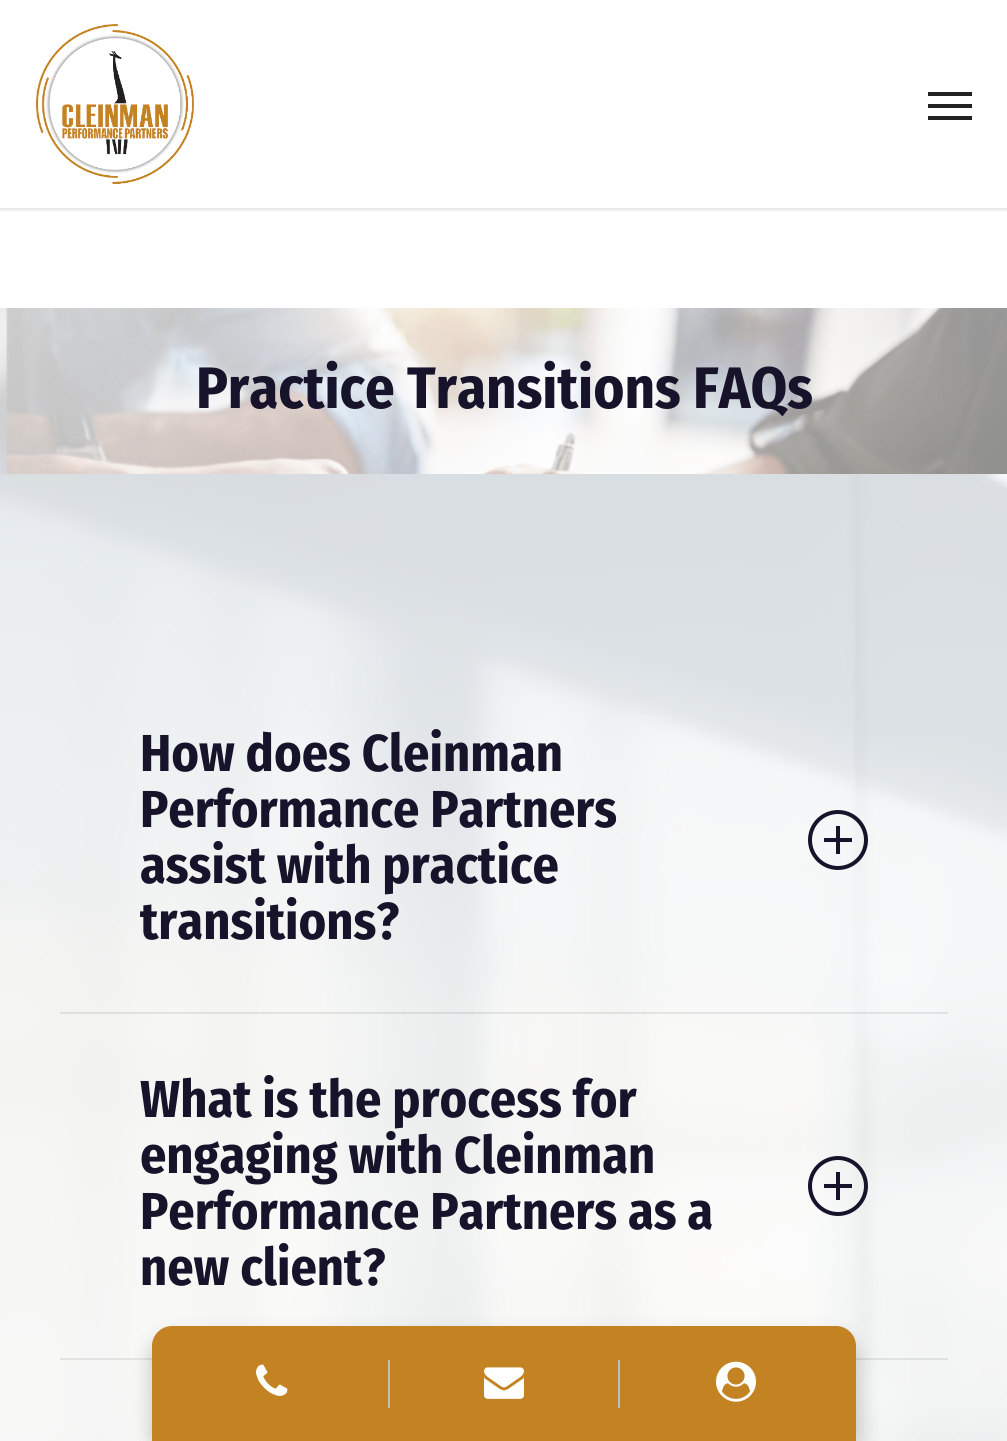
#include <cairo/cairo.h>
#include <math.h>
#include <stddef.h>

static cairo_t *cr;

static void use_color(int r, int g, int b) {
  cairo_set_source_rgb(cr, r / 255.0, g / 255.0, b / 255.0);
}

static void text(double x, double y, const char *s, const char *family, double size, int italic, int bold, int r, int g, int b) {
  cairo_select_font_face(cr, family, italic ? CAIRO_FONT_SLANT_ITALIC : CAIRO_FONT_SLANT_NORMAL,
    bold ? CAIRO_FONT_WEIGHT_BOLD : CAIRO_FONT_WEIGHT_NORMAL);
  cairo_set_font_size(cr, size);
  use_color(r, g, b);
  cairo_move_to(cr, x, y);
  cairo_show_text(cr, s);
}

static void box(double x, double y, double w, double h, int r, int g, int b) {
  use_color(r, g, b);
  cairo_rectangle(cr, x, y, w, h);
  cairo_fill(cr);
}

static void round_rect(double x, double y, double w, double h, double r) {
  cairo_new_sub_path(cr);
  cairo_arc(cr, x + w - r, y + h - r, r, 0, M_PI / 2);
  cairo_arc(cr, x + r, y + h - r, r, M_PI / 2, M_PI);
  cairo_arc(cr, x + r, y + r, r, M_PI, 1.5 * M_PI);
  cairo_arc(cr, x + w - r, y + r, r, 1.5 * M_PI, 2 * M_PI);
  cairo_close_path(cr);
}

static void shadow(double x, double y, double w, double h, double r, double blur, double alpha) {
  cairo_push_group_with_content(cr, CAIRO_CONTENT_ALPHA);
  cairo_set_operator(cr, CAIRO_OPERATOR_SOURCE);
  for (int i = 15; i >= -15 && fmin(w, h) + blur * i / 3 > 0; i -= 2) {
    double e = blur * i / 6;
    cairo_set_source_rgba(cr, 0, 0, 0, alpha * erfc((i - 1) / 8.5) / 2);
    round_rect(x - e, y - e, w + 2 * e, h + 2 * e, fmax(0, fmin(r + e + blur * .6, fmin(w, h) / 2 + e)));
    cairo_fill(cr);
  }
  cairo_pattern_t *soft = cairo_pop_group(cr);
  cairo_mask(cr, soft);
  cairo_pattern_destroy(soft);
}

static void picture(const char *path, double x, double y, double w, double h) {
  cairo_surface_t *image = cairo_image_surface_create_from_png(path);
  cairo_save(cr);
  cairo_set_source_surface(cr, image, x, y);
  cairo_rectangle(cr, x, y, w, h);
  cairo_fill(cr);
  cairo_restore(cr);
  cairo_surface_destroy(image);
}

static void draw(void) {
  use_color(255, 255, 255);
  cairo_paint(cr);
  cairo_save(cr);
  cairo_rectangle(cr, 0, 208, 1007, 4);
  cairo_clip(cr);
  use_color(0, 0, 0);
  shadow(0, 0, 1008, 208, 0, 3, 0.22);
  cairo_restore(cr);
  picture("img_01.png", 36, 24, 158, 160);
  box(928, 92, 44, 4, 34, 34, 34);
  box(928, 116, 44, 4, 34, 34, 34);
  box(928, 104, 44, 4, 34, 34, 34);
  picture("img_02.png", 0, 308, 1007, 166);
  picture("img_03.png", 0, 474, 1007, 967);
  cairo_set_source_rgba(cr, 0, 0, 0, 0.08);
  cairo_rectangle(cr, 60, 1012, 888, 2);
  cairo_fill(cr);
  cairo_arc(cr, 838, 840, 28, 0, 2 * M_PI);
  use_color(22, 19, 42);
  cairo_set_line_width(cr, 4);
  cairo_stroke(cr);
  box(824, 838, 28, 4, 22, 19, 42);
  box(836, 826, 4, 28, 22, 19, 42);
  cairo_set_source_rgba(cr, 0, 0, 0, 0.08);
  cairo_rectangle(cr, 60, 1358, 888, 2);
  cairo_fill(cr);
  cairo_arc(cr, 838, 1186, 28, 0, 2 * M_PI);
  use_color(22, 19, 42);
  cairo_stroke(cr);
  box(824, 1184, 28, 4, 22, 19, 42);
  box(836, 1172, 4, 28, 22, 19, 42);
  use_color(0, 0, 0);
  shadow(152, 1338, 704, 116, 20, 10, 0.24);
  use_color(195, 131, 34);
  cairo_new_path(cr);
  cairo_move_to(cr, 172, 1326);
  cairo_line_to(cr, 836, 1326);
  cairo_curve_to(cr, 847, 1326, 856, 1335, 856, 1346);
  cairo_line_to(cr, 856, 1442);
  cairo_line_to(cr, 152, 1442);
  cairo_line_to(cr, 152, 1346);
  cairo_curve_to(cr, 152, 1335, 161, 1326, 172, 1326);
  cairo_close_path(cr);
  cairo_fill(cr);
  picture("img_04.png", 256, 1364, 32, 32);
  box(388, 1360, 2, 48, 191, 191, 191);
  picture("img_05.png", 484, 1367, 40, 32);
  box(618, 1360, 2, 48, 191, 191, 191);
  picture("img_06.png", 716, 1361, 40, 41);
  text(196, 408, "Practice Transitions FAQs", "Fira Sans Condensed", 58.5, 0, 1, 22, 19, 42);
  text(140, 771, "How does Cleinman", "Fira Sans Condensed", 52, 0, 1, 22, 19, 42);
  text(140, 827, "Performance Partners", "Fira Sans Condensed", 52, 0, 1, 22, 19, 42);
  text(140, 883, "assist with practice", "Fira Sans Condensed", 52, 0, 1, 22, 19, 42);
  text(140, 939, "transitions?", "Fira Sans Condensed", 52, 0, 1, 22, 19, 42);
  text(140, 1117, "What is the process for", "Fira Sans Condensed", 52, 0, 1, 22, 19, 42);
  text(140, 1173, "engaging with Cleinman", "Fira Sans Condensed", 52, 0, 1, 22, 19, 42);
  text(140, 1229, "Performance Partners as a", "Fira Sans Condensed", 52, 0, 1, 22, 19, 42);
  text(140, 1285, "new client?", "Fira Sans Condensed", 52, 0, 1, 22, 19, 42);
}

int main(void) {
  cairo_surface_t *surface = cairo_image_surface_create(CAIRO_FORMAT_RGB24, 1007, 1441);
  cr = cairo_create(surface);
  cairo_font_options_t *options = cairo_font_options_create();
  cairo_font_options_set_hint_metrics(options, CAIRO_HINT_METRICS_OFF);
  cairo_font_options_set_hint_style(options, CAIRO_HINT_STYLE_NONE);
  cairo_set_font_options(cr, options);
  cairo_set_miter_limit(cr, 4);
  draw();
  cairo_surface_write_to_png(surface, "out.png");
  cairo_font_options_destroy(options);
  cairo_destroy(cr);
  cairo_surface_destroy(surface);
  return 0;
}
